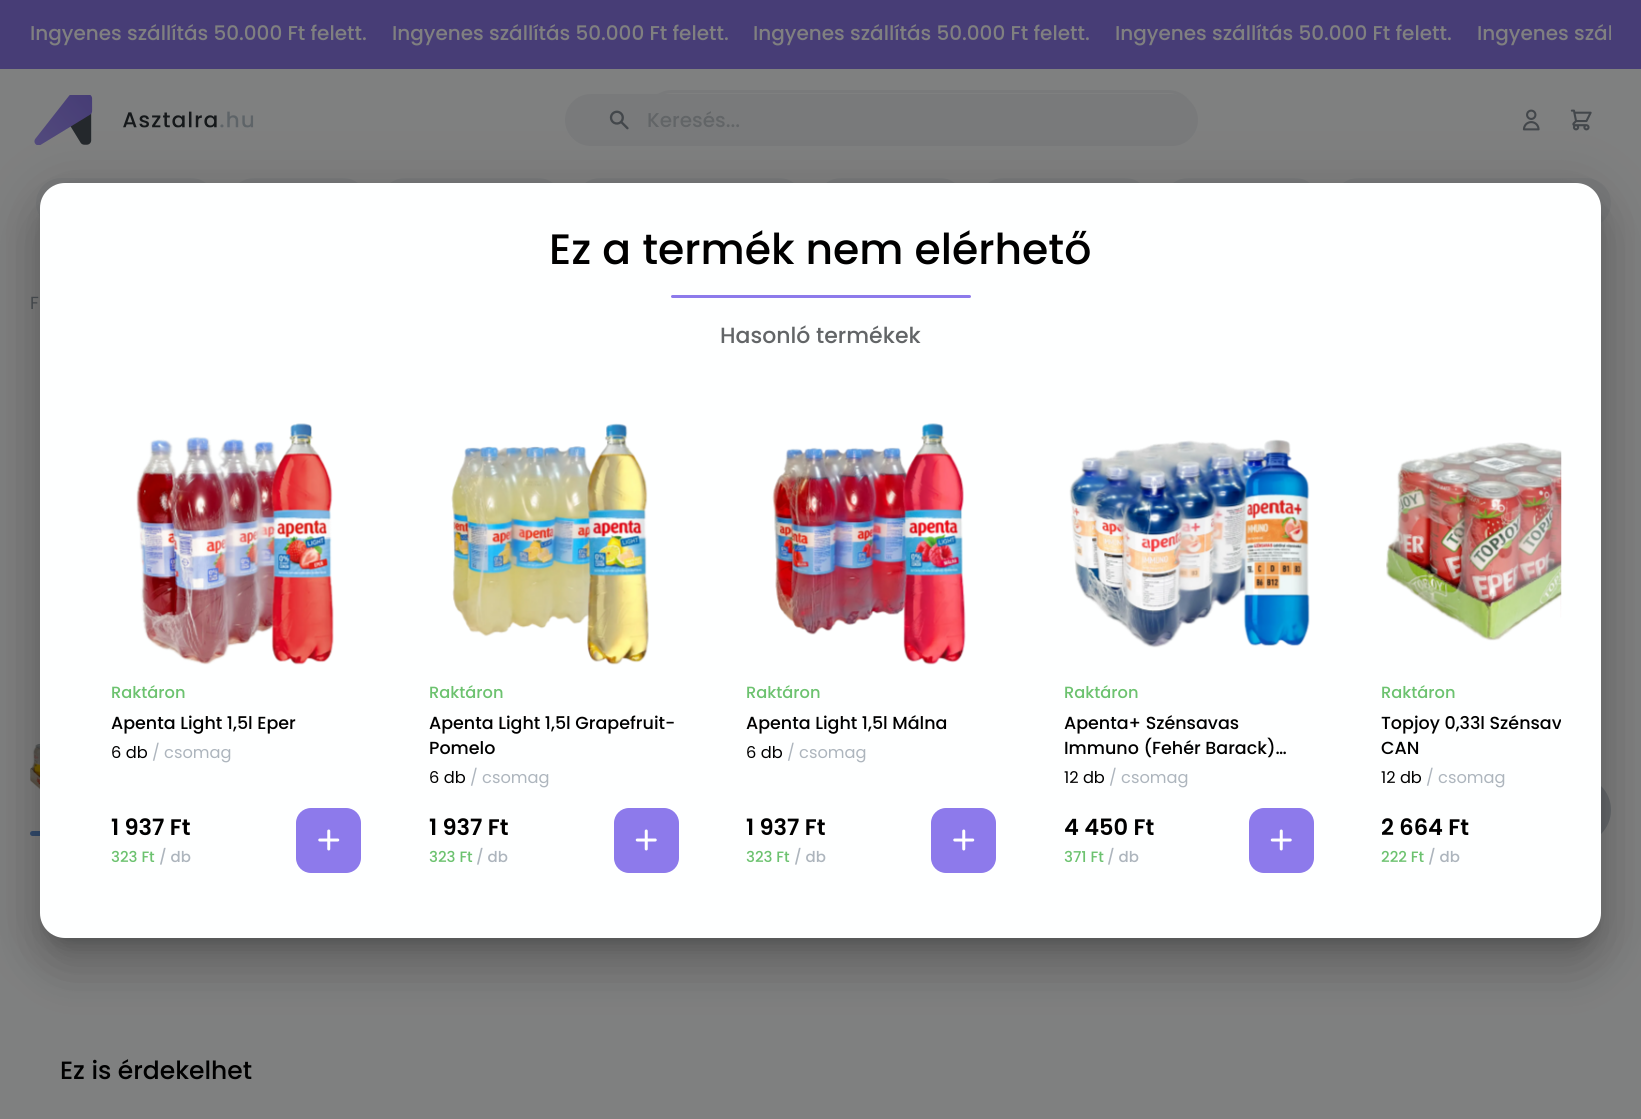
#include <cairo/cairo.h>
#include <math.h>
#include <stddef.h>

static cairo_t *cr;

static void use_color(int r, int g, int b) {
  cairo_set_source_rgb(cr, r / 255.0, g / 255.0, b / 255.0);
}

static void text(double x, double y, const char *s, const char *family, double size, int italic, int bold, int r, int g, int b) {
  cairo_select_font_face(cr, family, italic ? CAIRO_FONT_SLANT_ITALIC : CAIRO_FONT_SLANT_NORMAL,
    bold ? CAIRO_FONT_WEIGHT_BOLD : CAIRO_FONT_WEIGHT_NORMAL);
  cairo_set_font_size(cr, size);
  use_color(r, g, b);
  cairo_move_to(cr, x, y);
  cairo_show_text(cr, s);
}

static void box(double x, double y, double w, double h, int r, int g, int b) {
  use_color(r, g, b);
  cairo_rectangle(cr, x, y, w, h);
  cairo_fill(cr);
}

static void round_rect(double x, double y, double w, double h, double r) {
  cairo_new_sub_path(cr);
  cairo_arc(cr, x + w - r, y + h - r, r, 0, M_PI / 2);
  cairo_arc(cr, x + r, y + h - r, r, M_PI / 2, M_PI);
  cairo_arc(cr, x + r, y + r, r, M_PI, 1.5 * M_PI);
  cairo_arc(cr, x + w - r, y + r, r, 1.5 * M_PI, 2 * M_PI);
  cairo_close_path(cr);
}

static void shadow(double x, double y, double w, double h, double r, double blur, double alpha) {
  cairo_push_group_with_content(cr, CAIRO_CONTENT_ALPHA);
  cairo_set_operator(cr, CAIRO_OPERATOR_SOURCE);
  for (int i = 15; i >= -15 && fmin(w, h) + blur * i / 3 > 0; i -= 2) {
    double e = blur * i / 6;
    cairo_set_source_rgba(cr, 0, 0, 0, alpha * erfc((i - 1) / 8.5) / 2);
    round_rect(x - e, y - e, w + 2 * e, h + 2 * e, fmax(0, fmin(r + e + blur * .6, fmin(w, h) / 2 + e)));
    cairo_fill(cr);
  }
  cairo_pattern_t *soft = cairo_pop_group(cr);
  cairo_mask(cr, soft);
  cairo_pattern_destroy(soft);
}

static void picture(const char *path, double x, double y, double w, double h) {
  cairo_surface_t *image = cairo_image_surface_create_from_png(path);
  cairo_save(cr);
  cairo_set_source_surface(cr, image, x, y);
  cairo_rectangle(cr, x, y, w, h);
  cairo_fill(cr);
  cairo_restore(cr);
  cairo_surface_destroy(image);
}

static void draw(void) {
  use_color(127, 128, 128);
  cairo_paint(cr);
  box(0, 0, 1641, 69, 71, 61, 118);
  picture("img_01.png", 34, 95, 220, 50);
  use_color(121, 122, 123);
  round_rect(565, 94, 633, 52, 26);
  cairo_fill(cr);
  picture("img_02.png", 609, 110, 20, 20);
  round_rect(646.5, 91.5, 547, 51, 25.5);
  cairo_set_line_width(cr, 3);
  cairo_stroke(cr);
  picture("img_03.png", 1522, 109, 18, 22);
  picture("img_04.png", 1570, 109, 22, 22);
  round_rect(36, 178, 180, 50, 25);
  cairo_fill(cr);
  round_rect(229, 178, 139, 50, 25);
  cairo_fill(cr);
  round_rect(380, 178, 183, 50, 25);
  cairo_fill(cr);
  round_rect(575, 178, 229, 50, 25);
  cairo_fill(cr);
  round_rect(816, 178, 149, 50, 25);
  cairo_fill(cr);
  round_rect(978, 178, 172, 50, 25);
  cairo_fill(cr);
  round_rect(1163, 178, 157, 50, 25);
  cairo_fill(cr);
  round_rect(1333, 178, 278, 50, 25);
  cairo_fill(cr);
  picture("img_05.png", 30, 743, 10, 47);
  use_color(51, 77, 111);
  round_rect(30, 831, 119, 5, 2.5);
  cairo_fill(cr);
  use_color(103, 106, 109);
  round_rect(1383, 776, 228, 68, 34);
  cairo_fill(cr);
  use_color(0, 0, 0);
  shadow(30, 184, 1581, 775, 35, 29, 0.12);
  shadow(36, 209, 1569, 762, 29, 24, 0.14);
  shadow(49, 205, 1544, 738, 16, 9.5, 0.2);
  use_color(254, 255, 255);
  round_rect(40, 183, 1561, 755, 25);
  cairo_fill(cr);
  use_color(141, 122, 235);
  round_rect(671, 295, 300, 3, 1.5);
  cairo_fill(cr);
  picture("img_06.png", 136, 423, 198, 242);
  round_rect(296, 808, 65, 65, 15);
  cairo_fill(cr);
  picture("img_07.png", 318, 829, 22, 22);
  picture("img_08.png", 451, 423, 198, 242);
  round_rect(614, 808, 65, 65, 15);
  cairo_fill(cr);
  picture("img_09.png", 635, 829, 22, 22);
  picture("img_10.png", 772, 423, 194, 242);
  round_rect(931, 808, 65, 65, 15);
  cairo_fill(cr);
  picture("img_07.png", 953, 829, 22, 22);
  picture("img_11.png", 1069, 439, 241, 209);
  round_rect(1249, 808, 65, 65, 15);
  cairo_fill(cr);
  picture("img_09.png", 1270, 829, 22, 22);
  picture("img_12.png", 1386, 442, 176, 199);
  text(30, 40, "Ingyenes szállítás 50.000 Ft felett.", "Poppins Medium", 20, 0, 0, 128, 128, 128);
  text(392, 40, "Ingyenes szállítás 50.000 Ft felett.", "Poppins Medium", 20, 0, 0, 128, 128, 128);
  text(753, 40, "Ingyenes szállítás 50.000 Ft felett.", "Poppins Medium", 20, 0, 0, 128, 128, 128);
  text(1115, 40, "Ingyenes szállítás 50.000 Ft felett.", "Poppins Medium", 20, 0, 0, 128, 128, 128);
  cairo_save(cr);
  cairo_rectangle(cr, 30, 0, 1581, 69);
  cairo_clip(cr);
  text(1477, 40, "Ingyenes szál", "Poppins Medium", 20, 0, 0, 128, 128, 128);
  cairo_restore(cr);
  text(647, 127, "Keresés...", "Poppins Medium", 20, 0, 0, 98, 101, 103);
  text(30, 309, "F", "Poppins", 17.5, 0, 0, 67, 71, 75);
  text(60, 1079, "Ez is érdekelhet", "Poppins Medium", 25, 0, 0, 0, 0, 0);
  text(549, 264, "Ez a termék nem elérhető", "Poppins Medium", 42.5, 0, 0, 0, 0, 0);
  text(720, 343, "Hasonló termékek", "Poppins Medium", 22, 0, 0, 98, 101, 103);
  text(111, 698, "Raktáron", "Poppins Medium", 16.25, 0, 0, 108, 194, 111);
  text(111, 729, "Apenta Light 1,5l Eper", "Poppins Medium", 17.5, 0, 0, 0, 0, 0);
  text(111, 758, "6 db", "Poppins", 16.25, 0, 0, 0, 0, 0);
  text(152, 758, "/ csomag", "Poppins", 16.25, 0, 0, 173, 181, 189);
  text(111, 835, "1 937 Ft", "Poppins SemiBold", 22.5, 0, 0, 0, 0, 0);
  text(111, 862, "323 Ft", "Poppins Medium", 15, 0, 0, 108, 194, 111);
  text(159, 862, "/ db", "Poppins Medium", 15, 0, 0, 173, 181, 189);
  text(429, 698, "Raktáron", "Poppins Medium", 16.25, 0, 0, 108, 194, 111);
  text(429, 729, "Apenta Light 1,5l Grapefruit-", "Poppins Medium", 17.5, 0, 0, 0, 0, 0);
  text(429, 754, "Pomelo", "Poppins Medium", 17.5, 0, 0, 0, 0, 0);
  text(429, 783, "6 db", "Poppins", 16.25, 0, 0, 0, 0, 0);
  text(470, 783, "/ csomag", "Poppins", 16.25, 0, 0, 173, 181, 189);
  text(429, 835, "1 937 Ft", "Poppins SemiBold", 22.5, 0, 0, 0, 0, 0);
  text(429, 862, "323 Ft", "Poppins Medium", 15, 0, 0, 108, 194, 111);
  text(476, 862, "/ db", "Poppins Medium", 15, 0, 0, 173, 181, 189);
  text(746, 698, "Raktáron", "Poppins Medium", 16.25, 0, 0, 108, 194, 111);
  text(746, 729, "Apenta Light 1,5l Málna", "Poppins Medium", 17.5, 0, 0, 0, 0, 0);
  text(746, 758, "6 db", "Poppins", 16.25, 0, 0, 0, 0, 0);
  text(787, 758, "/ csomag", "Poppins", 16.25, 0, 0, 173, 181, 189);
  text(746, 835, "1 937 Ft", "Poppins SemiBold", 22.5, 0, 0, 0, 0, 0);
  text(746, 862, "323 Ft", "Poppins Medium", 15, 0, 0, 108, 194, 111);
  text(794, 862, "/ db", "Poppins Medium", 15, 0, 0, 173, 181, 189);
  text(1064, 698, "Raktáron", "Poppins Medium", 16.25, 0, 0, 108, 194, 111);
  text(1064, 729, "Apenta+ Szénsavas", "Poppins Medium", 17.5, 0, 0, 0, 0, 0);
  text(1064, 754, "Immuno (Fehér Barack)…", "Poppins Medium", 17.5, 0, 0, 0, 0, 0);
  text(1064, 783, "12 db", "Poppins", 16.25, 0, 0, 0, 0, 0);
  text(1109, 783, "/ csomag", "Poppins", 16.25, 0, 0, 173, 181, 189);
  text(1064, 835, "4 450 Ft", "Poppins SemiBold", 22.5, 0, 0, 0, 0, 0);
  text(1064, 862, "371 Ft", "Poppins Medium", 15, 0, 0, 108, 194, 111);
  text(1107, 862, "/ db", "Poppins Medium", 15, 0, 0, 173, 181, 189);
  text(1381, 698, "Raktáron", "Poppins Medium", 16.25, 0, 0, 108, 194, 111);
  cairo_save(cr);
  cairo_rectangle(cr, 1381, 710, 180, 50);
  cairo_clip(cr);
  text(1381, 729, "Topjoy 0,33l Szénsav", "Poppins Medium", 17.5, 0, 0, 0, 0, 0);
  cairo_restore(cr);
  text(1381, 754, "CAN", "Poppins Medium", 17.5, 0, 0, 0, 0, 0);
  text(1381, 783, "12 db", "Poppins", 16.25, 0, 0, 0, 0, 0);
  text(1426, 783, "/ csomag", "Poppins", 16.25, 0, 0, 173, 181, 189);
  text(1381, 835, "2 664 Ft", "Poppins SemiBold", 22.5, 0, 0, 0, 0, 0);
  text(1381, 862, "222 Ft", "Poppins Medium", 15, 0, 0, 108, 194, 111);
  text(1428, 862, "/ db", "Poppins Medium", 15, 0, 0, 173, 181, 189);
}

int main(void) {
  cairo_surface_t *surface = cairo_image_surface_create(CAIRO_FORMAT_RGB24, 1641, 1119);
  cr = cairo_create(surface);
  cairo_font_options_t *options = cairo_font_options_create();
  cairo_font_options_set_hint_metrics(options, CAIRO_HINT_METRICS_OFF);
  cairo_font_options_set_hint_style(options, CAIRO_HINT_STYLE_NONE);
  cairo_set_font_options(cr, options);
  cairo_set_miter_limit(cr, 4);
  draw();
  cairo_surface_write_to_png(surface, "out.png");
  cairo_font_options_destroy(options);
  cairo_destroy(cr);
  cairo_surface_destroy(surface);
  return 0;
}
